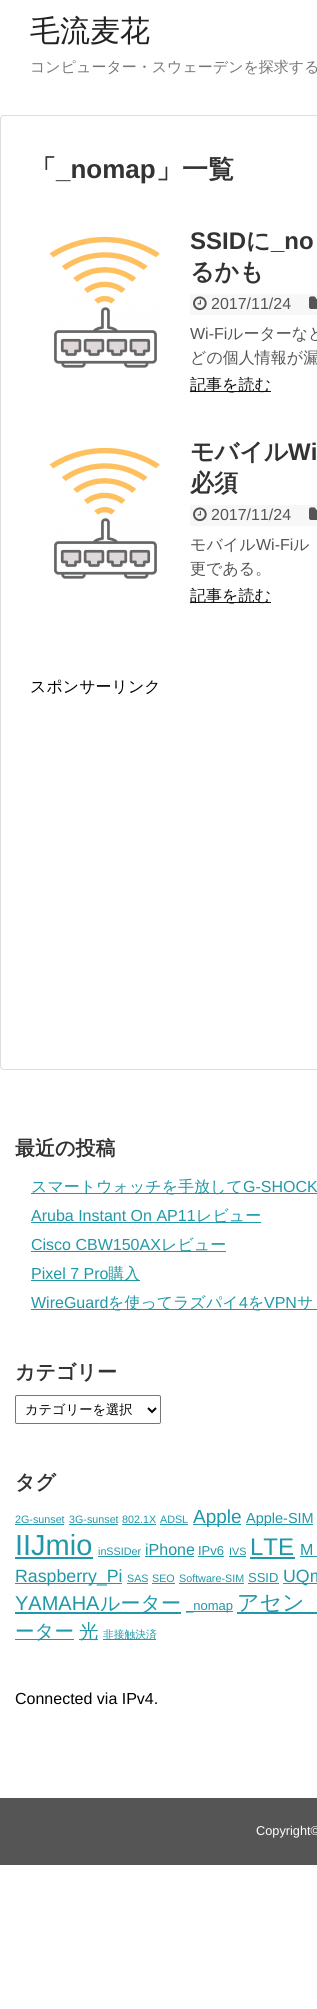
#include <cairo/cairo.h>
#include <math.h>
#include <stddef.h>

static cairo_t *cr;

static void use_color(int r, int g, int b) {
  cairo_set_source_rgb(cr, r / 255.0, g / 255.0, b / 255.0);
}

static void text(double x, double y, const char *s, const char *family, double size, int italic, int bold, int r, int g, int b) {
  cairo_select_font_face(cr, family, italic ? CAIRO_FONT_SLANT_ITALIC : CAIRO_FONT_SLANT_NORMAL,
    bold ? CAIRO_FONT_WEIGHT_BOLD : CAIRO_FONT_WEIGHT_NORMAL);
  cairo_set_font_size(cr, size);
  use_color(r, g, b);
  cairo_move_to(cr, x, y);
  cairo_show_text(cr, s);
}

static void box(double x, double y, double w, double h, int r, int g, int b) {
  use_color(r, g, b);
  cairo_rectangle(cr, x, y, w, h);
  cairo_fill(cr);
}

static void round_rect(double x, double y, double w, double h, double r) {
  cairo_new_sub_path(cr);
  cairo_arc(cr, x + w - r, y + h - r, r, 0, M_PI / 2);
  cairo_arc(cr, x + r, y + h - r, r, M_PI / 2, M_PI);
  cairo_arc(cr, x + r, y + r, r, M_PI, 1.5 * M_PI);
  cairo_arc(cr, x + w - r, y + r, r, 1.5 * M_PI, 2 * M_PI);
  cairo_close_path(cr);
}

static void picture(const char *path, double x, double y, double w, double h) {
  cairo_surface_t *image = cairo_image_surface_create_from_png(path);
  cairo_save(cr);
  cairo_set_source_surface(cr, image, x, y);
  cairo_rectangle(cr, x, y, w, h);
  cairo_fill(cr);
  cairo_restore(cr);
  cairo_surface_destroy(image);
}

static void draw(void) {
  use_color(255, 255, 255);
  cairo_paint(cr);
  round_rect(0.5, 115.5, 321, 954, 3.5);
  use_color(221, 221, 221);
  cairo_set_line_width(cr, 1);
  cairo_stroke(cr);
  picture("img_01.png", 49, 236, 111, 132);
  box(190, 294, 127, 21, 247, 247, 247);
  picture("img_02.png", 193, 296, 14, 15);
  picture("img_03.png", 309, 296, 8, 13);
  box(190, 391, 81, 1, 17, 17, 17);
  picture("img_01.png", 49, 447, 111, 132);
  box(190, 505, 127, 21, 247, 247, 247);
  picture("img_02.png", 193, 507, 14, 15);
  picture("img_03.png", 309, 507, 8, 13);
  box(190, 602, 81, 1, 17, 17, 17);
  box(31, 1193, 286, 1, 32, 152, 168);
  box(31, 1222, 230, 1, 32, 152, 168);
  box(31, 1251, 195, 1, 32, 152, 168);
  box(31, 1280, 109, 1, 32, 152, 168);
  box(31, 1309, 286, 1, 32, 152, 168);
  round_rect(15.5, 1395.5, 145, 28, 1.5);
  use_color(118, 118, 118);
  cairo_stroke(cr);
  cairo_new_path(cr);
  cairo_move_to(cr, 148, 1408);
  cairo_line_to(cr, 152, 1412);
  cairo_line_to(cr, 156, 1408);
  use_color(0, 0, 0);
  cairo_set_line_width(cr, 2);
  cairo_stroke(cr);
  box(15, 1524, 49, 1, 32, 152, 168);
  box(69, 1524, 49, 1, 32, 152, 168);
  box(122, 1524, 34, 1, 32, 152, 168);
  box(160, 1524, 28, 1, 32, 152, 168);
  box(193, 1524, 48, 1, 32, 152, 168);
  box(246, 1524, 67, 1, 32, 152, 168);
  box(15, 1557, 78, 2, 32, 152, 168);
  box(98, 1556, 42, 1, 32, 152, 168);
  box(145, 1556, 49, 1, 32, 152, 168);
  box(198, 1556, 26, 1, 32, 152, 168);
  box(229, 1556, 17, 1, 32, 152, 168);
  box(250, 1557, 45, 2, 32, 152, 168);
  box(300, 1556, 17, 1, 32, 152, 168);
  box(15, 1583, 107, 1, 32, 152, 168);
  box(127, 1583, 21, 1, 32, 152, 168);
  box(152, 1583, 23, 1, 32, 152, 168);
  box(179, 1583, 65, 1, 32, 152, 168);
  box(248, 1583, 31, 1, 32, 152, 168);
  box(283, 1583, 34, 1, 32, 152, 168);
  box(15, 1612, 166, 2, 32, 152, 168);
  box(186, 1611, 47, 1, 32, 152, 168);
  box(237, 1612, 80, 2, 32, 152, 168);
  box(15, 1639, 59, 1, 32, 152, 168);
  box(79, 1639, 19, 1, 32, 152, 168);
  box(103, 1639, 53, 1, 32, 152, 168);
  box(0, 1798, 317, 67, 85, 85, 85);
  text(30, 41, "毛流麦花", "WenQuanYi Zen Hei Medium", 30, 0, 0, 34, 34, 34);
  text(30, 72, "コンピューター・スウェーデンを探求する", "WenQuanYi Zen Hei Medium", 15, 0, 0, 119, 119, 119);
  text(30, 178, "「", "WenQuanYi Zen Hei", 26, 0, 1, 51, 51, 51);
  text(56, 178, "_nomap", "Liberation Sans", 26, 0, 1, 51, 51, 51);
  text(156, 178, "」一覧", "WenQuanYi Zen Hei", 26, 0, 1, 51, 51, 51);
  text(190, 249, "SSID", "Liberation Sans", 24, 0, 1, 51, 51, 51);
  text(246, 249, "に", "WenQuanYi Zen Hei", 24, 0, 1, 51, 51, 51);
  text(271, 249, "_no", "Liberation Sans", 24, 0, 1, 51, 51, 51);
  text(190, 280, "るかも", "WenQuanYi Zen Hei", 24, 0, 1, 51, 51, 51);
  text(211, 309, "2017/11/24", "Liberation Sans", 16, 0, 0, 85, 85, 85);
  text(190, 339, "Wi-Fi", "Liberation Sans", 16, 0, 0, 85, 85, 85);
  text(227, 339, "ルーターなど", "WenQuanYi Zen Hei Medium", 16, 0, 0, 85, 85, 85);
  text(190, 363, "どの個人情報が漏", "WenQuanYi Zen Hei Medium", 16, 0, 0, 85, 85, 85);
  text(190, 390, "記事を読む", "WenQuanYi Zen Hei Medium", 16, 0, 0, 17, 17, 17);
  text(190, 460, "モバイル", "WenQuanYi Zen Hei", 24, 0, 1, 51, 51, 51);
  text(288, 460, "Wi", "Liberation Sans", 24, 0, 1, 51, 51, 51);
  text(190, 491, "必須", "WenQuanYi Zen Hei", 24, 0, 1, 51, 51, 51);
  text(211, 520, "2017/11/24", "Liberation Sans", 16, 0, 0, 85, 85, 85);
  text(190, 550, "モバイル", "WenQuanYi Zen Hei Medium", 16, 0, 0, 85, 85, 85);
  text(256, 550, "Wi-Fi", "Liberation Sans", 16, 0, 0, 85, 85, 85);
  text(293, 550, "ル", "WenQuanYi Zen Hei Medium", 16, 0, 0, 85, 85, 85);
  text(190, 574, "更である。", "WenQuanYi Zen Hei Medium", 16, 0, 0, 85, 85, 85);
  text(190, 601, "記事を読む", "WenQuanYi Zen Hei Medium", 16, 0, 0, 17, 17, 17);
  text(30, 692, "スポンサーリンク", "WenQuanYi Zen Hei Medium", 16, 0, 0, 0, 0, 0);
  text(15, 1155, "最近の投稿", "WenQuanYi Zen Hei", 20, 0, 1, 51, 51, 51);
  text(31, 1192, "スマートウォッチを手放して", "WenQuanYi Zen Hei Medium", 16, 0, 0, 32, 152, 168);
  text(243, 1192, "G-SHOCK", "Liberation Sans", 16, 0, 0, 32, 152, 168);
  text(31, 1221, "Aruba Instant On AP11", "Liberation Sans", 16, 0, 0, 32, 152, 168);
  text(196, 1221, "レビュー", "WenQuanYi Zen Hei Medium", 16, 0, 0, 32, 152, 168);
  text(31, 1250, "Cisco CBW150AX", "Liberation Sans", 16, 0, 0, 32, 152, 168);
  text(161, 1250, "レビュー", "WenQuanYi Zen Hei Medium", 16, 0, 0, 32, 152, 168);
  text(31, 1279, "Pixel 7 Pro", "Liberation Sans", 16, 0, 0, 32, 152, 168);
  text(108, 1279, "購入", "WenQuanYi Zen Hei Medium", 16, 0, 0, 32, 152, 168);
  text(31, 1308, "WireGuard", "Liberation Sans", 16, 0, 0, 32, 152, 168);
  text(108, 1308, "を使ってラズパイ", "WenQuanYi Zen Hei Medium", 16, 0, 0, 32, 152, 168);
  text(239, 1308, "4", "Liberation Sans", 16, 0, 0, 32, 152, 168);
  text(248, 1308, "を", "WenQuanYi Zen Hei Medium", 16, 0, 0, 32, 152, 168);
  text(264, 1308, "VPN", "Liberation Sans", 16, 0, 0, 32, 152, 168);
  text(297, 1308, "サ", "WenQuanYi Zen Hei Medium", 16, 0, 0, 32, 152, 168);
  text(15, 1379, "カテゴリー", "WenQuanYi Zen Hei", 20, 0, 1, 51, 51, 51);
  text(25, 1414, "カテゴリーを選択", "WenQuanYi Zen Hei Medium", 13.25, 0, 0, 0, 0, 0);
  text(15, 1489, "タグ", "WenQuanYi Zen Hei", 20, 0, 1, 51, 51, 51);
  text(15, 1523, "2G-sunset", "Liberation Sans", 10.75, 0, 0, 32, 152, 168);
  text(69, 1523, "3G-sunset", "Liberation Sans", 10.75, 0, 0, 32, 152, 168);
  text(122, 1523, "802.1X", "Liberation Sans", 10.75, 0, 0, 32, 152, 168);
  text(160, 1523, "ADSL", "Liberation Sans", 10.75, 0, 0, 32, 152, 168);
  text(193, 1523, "Apple", "Liberation Sans", 19, 0, 0, 32, 152, 168);
  text(246, 1523, "Apple-SIM", "Liberation Sans", 14.5, 0, 0, 32, 152, 168);
  text(15, 1555, "IIJmio", "Liberation Sans", 29, 0, 0, 32, 152, 168);
  text(98, 1555, "inSSIDer", "Liberation Sans", 10.75, 0, 0, 32, 152, 168);
  text(145, 1555, "iPhone", "Liberation Sans", 16, 0, 0, 32, 152, 168);
  text(198, 1555, "IPv6", "Liberation Sans", 13, 0, 0, 32, 152, 168);
  text(229, 1555, "IVS", "Liberation Sans", 10.75, 0, 0, 32, 152, 168);
  text(250, 1555, "LTE", "Liberation Sans", 24, 0, 0, 32, 152, 168);
  text(300, 1555, "M", "Liberation Sans", 16, 0, 0, 32, 152, 168);
  text(15, 1582, "Raspberry_Pi", "Liberation Sans", 17.75, 0, 0, 32, 152, 168);
  text(127, 1582, "SAS", "Liberation Sans", 10.75, 0, 0, 32, 152, 168);
  text(152, 1582, "SEO", "Liberation Sans", 10.75, 0, 0, 32, 152, 168);
  text(179, 1582, "Software-SIM", "Liberation Sans", 10.75, 0, 0, 32, 152, 168);
  text(248, 1582, "SSID", "Liberation Sans", 13, 0, 0, 32, 152, 168);
  text(283, 1582, "UQm", "Liberation Sans", 17.75, 0, 0, 32, 152, 168);
  text(15, 1610, "YAMAHA", "Liberation Sans", 20, 0, 0, 32, 152, 168);
  text(100, 1610, "ルーター", "WenQuanYi Zen Hei Medium", 20, 0, 0, 32, 152, 168);
  text(186, 1610, "_nomap", "Liberation Sans", 13, 0, 0, 32, 152, 168);
  text(237, 1610, "アセン", "WenQuanYi Zen Hei Medium", 22, 0, 0, 32, 152, 168);
  text(15, 1638, "ーター", "WenQuanYi Zen Hei Medium", 19.5, 0, 0, 32, 152, 168);
  text(79, 1638, "光", "WenQuanYi Zen Hei Medium", 19.5, 0, 0, 32, 152, 168);
  text(103, 1638, "非接触決済", "WenQuanYi Zen Hei Medium", 10.75, 0, 0, 32, 152, 168);
  text(15, 1704, "Connected via IPv4.", "Liberation Sans", 16, 0, 0, 0, 0, 0);
  text(256, 1835, "Copyright©", "Liberation Sans", 12.75, 0, 0, 255, 255, 255);
}

int main(void) {
  cairo_surface_t *surface = cairo_image_surface_create(CAIRO_FORMAT_RGB24, 317, 2009);
  cr = cairo_create(surface);
  cairo_font_options_t *options = cairo_font_options_create();
  cairo_font_options_set_hint_metrics(options, CAIRO_HINT_METRICS_OFF);
  cairo_font_options_set_hint_style(options, CAIRO_HINT_STYLE_NONE);
  cairo_set_font_options(cr, options);
  cairo_set_miter_limit(cr, 4);
  draw();
  cairo_surface_write_to_png(surface, "out.png");
  cairo_font_options_destroy(options);
  cairo_destroy(cr);
  cairo_surface_destroy(surface);
  return 0;
}
